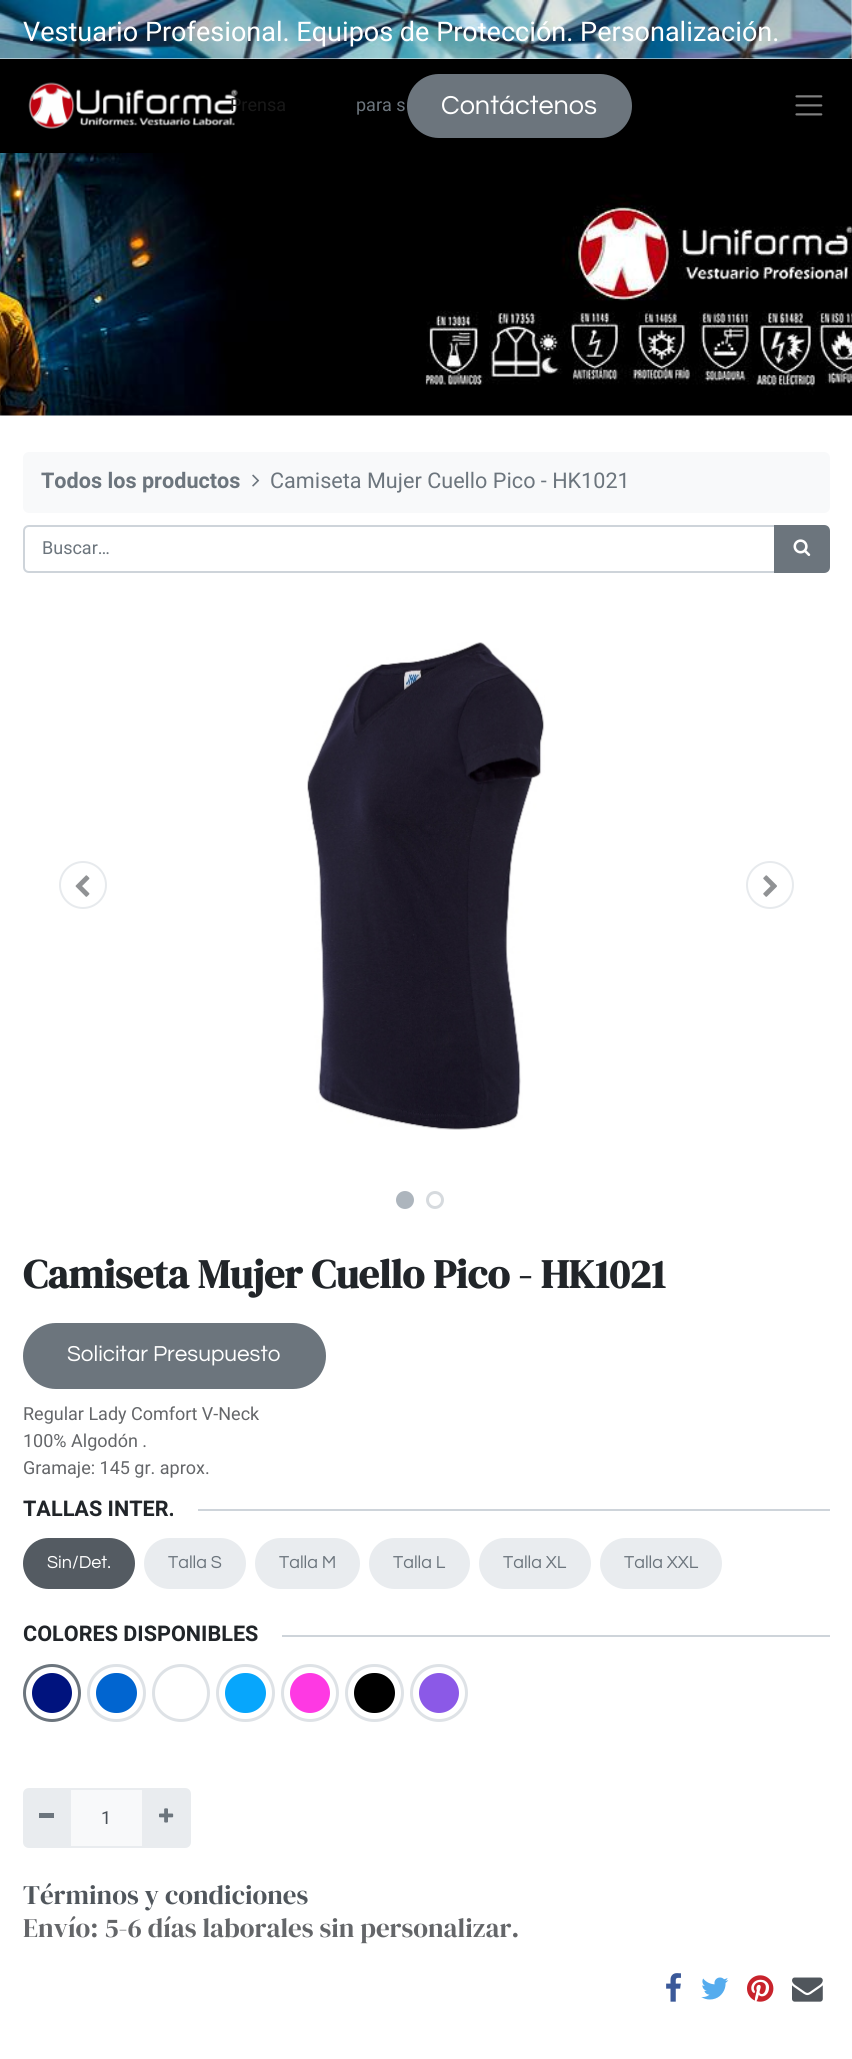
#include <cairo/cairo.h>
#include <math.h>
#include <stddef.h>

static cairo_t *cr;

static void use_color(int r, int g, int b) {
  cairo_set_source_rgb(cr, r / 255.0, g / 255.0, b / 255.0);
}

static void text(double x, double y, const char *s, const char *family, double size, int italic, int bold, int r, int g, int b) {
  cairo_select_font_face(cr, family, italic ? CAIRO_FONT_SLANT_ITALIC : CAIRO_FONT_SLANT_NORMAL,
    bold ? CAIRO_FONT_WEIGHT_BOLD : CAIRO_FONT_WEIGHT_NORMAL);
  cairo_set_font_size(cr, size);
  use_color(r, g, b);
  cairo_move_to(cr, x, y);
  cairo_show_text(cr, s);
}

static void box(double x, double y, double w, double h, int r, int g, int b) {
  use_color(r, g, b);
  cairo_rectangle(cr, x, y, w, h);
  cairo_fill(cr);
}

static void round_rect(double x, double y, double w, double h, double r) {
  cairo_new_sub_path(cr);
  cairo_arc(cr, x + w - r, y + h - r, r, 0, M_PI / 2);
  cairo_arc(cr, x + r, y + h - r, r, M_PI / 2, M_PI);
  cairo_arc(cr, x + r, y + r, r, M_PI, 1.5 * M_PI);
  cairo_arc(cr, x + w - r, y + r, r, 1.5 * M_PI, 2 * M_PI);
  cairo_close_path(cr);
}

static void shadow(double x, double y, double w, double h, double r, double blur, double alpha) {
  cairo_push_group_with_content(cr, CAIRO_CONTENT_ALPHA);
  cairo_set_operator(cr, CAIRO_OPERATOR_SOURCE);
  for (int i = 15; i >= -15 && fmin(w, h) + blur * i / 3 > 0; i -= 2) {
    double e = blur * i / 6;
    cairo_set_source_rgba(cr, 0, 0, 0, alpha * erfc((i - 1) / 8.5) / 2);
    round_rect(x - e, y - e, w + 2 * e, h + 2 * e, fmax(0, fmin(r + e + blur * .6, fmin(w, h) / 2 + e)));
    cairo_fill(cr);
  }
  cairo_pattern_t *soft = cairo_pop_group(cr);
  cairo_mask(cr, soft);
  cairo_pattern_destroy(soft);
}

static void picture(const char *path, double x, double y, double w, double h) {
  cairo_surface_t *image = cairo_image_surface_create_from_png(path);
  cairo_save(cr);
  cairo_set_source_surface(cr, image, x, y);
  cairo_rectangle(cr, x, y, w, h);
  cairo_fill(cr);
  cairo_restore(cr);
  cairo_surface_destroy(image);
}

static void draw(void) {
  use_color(255, 255, 255);
  cairo_paint(cr);
  picture("img_01.png", 0, 0, 852, 59);
  picture("img_04.png", 0, 153, 852, 263);
  use_color(0, 0, 0);
  shadow(0, 62, 852, 94, 0, 3, 0.07);
  box(0, 59, 852, 94, 0, 0, 0);
  picture("img_02.png", 28, 82, 210, 47);
  use_color(108, 117, 125);
  round_rect(408, 75, 223, 62, 31);
  cairo_fill_preserve(cr);
  cairo_stroke(cr);
  picture("img_03.png", 795, 95, 28, 21);
  use_color(248, 249, 250);
  round_rect(23, 452, 807, 61, 6);
  cairo_fill(cr);
  picture("img_05.png", 252, 474, 8, 13);
  cairo_new_path(cr);
  cairo_move_to(cr, 29, 526);
  cairo_line_to(cr, 775, 526);
  cairo_line_to(cr, 775, 572);
  cairo_line_to(cr, 29, 572);
  cairo_curve_to(cr, 26, 572, 24, 570, 24, 567);
  cairo_line_to(cr, 24, 531);
  cairo_curve_to(cr, 24, 528, 26, 526, 29, 526);
  cairo_close_path(cr);
  use_color(206, 212, 218);
  cairo_stroke(cr);
  use_color(108, 117, 125);
  cairo_new_path(cr);
  cairo_move_to(cr, 775, 526);
  cairo_line_to(cr, 824, 526);
  cairo_curve_to(cr, 827, 526, 829, 528, 829, 531);
  cairo_line_to(cr, 829, 567);
  cairo_curve_to(cr, 829, 570, 827, 572, 824, 572);
  cairo_line_to(cr, 775, 572);
  cairo_close_path(cr);
  cairo_fill_preserve(cr);
  cairo_stroke(cr);
  picture("img_06.png", 793, 539, 18, 17);
  cairo_arc(cr, 83, 885, 23, 0, 2 * M_PI);
  use_color(231, 234, 237);
  cairo_stroke(cr);
  picture("img_07.png", 75, 875, 15, 22);
  picture("img_08.png", 307, 642, 238, 488);
  cairo_arc(cr, 770, 885, 23, 0, 2 * M_PI);
  cairo_stroke(cr);
  picture("img_09.png", 763, 875, 14, 22);
  use_color(173, 181, 189);
  cairo_arc(cr, 405, 1200, 7.5, 0, 2 * M_PI);
  cairo_fill_preserve(cr);
  cairo_set_line_width(cr, 3);
  cairo_stroke(cr);
  cairo_arc(cr, 435, 1200, 7.5, 0, 2 * M_PI);
  use_color(214, 218, 222);
  cairo_stroke(cr);
  use_color(108, 117, 125);
  round_rect(24, 1324, 301, 64, 32);
  cairo_fill_preserve(cr);
  cairo_set_line_width(cr, 2);
  cairo_stroke(cr);
  box(198, 1509, 632, 2, 206, 212, 218);
  use_color(84, 91, 98);
  round_rect(23, 1538, 112, 51, 25.5);
  cairo_fill(cr);
  use_color(233, 236, 239);
  round_rect(144, 1538, 102, 51, 25.5);
  cairo_fill(cr);
  round_rect(255, 1538, 105, 51, 25.5);
  cairo_fill(cr);
  round_rect(369, 1538, 101, 51, 25.5);
  cairo_fill(cr);
  round_rect(479, 1538, 112, 51, 25.5);
  cairo_fill(cr);
  round_rect(600, 1538, 122, 51, 25.5);
  cairo_fill(cr);
  box(282, 1635, 548, 2, 206, 212, 218);
  use_color(0, 19, 126);
  cairo_arc(cr, 52, 1693, 25, 0, 2 * M_PI);
  cairo_fill_preserve(cr);
  use_color(108, 117, 125);
  cairo_set_line_width(cr, 8);
  cairo_stroke(cr);
  cairo_arc(cr, 52, 1693, 23, 0, 2 * M_PI);
  use_color(255, 255, 255);
  cairo_set_line_width(cr, 6);
  cairo_stroke(cr);
  use_color(1, 101, 208);
  round_rect(91, 1668, 51, 50, 25);
  cairo_fill_preserve(cr);
  use_color(222, 226, 230);
  cairo_set_line_width(cr, 8);
  cairo_stroke(cr);
  round_rect(93, 1670, 47, 46, 23);
  use_color(255, 255, 255);
  cairo_set_line_width(cr, 6);
  cairo_stroke(cr);
  cairo_arc(cr, 181, 1693, 25, 0, 2 * M_PI);
  use_color(222, 226, 230);
  cairo_set_line_width(cr, 8);
  cairo_stroke(cr);
  cairo_arc(cr, 181, 1693, 23, 0, 2 * M_PI);
  use_color(255, 255, 255);
  cairo_set_line_width(cr, 6);
  cairo_stroke(cr);
  use_color(7, 166, 252);
  round_rect(220, 1668, 51, 50, 25);
  cairo_fill_preserve(cr);
  use_color(222, 226, 230);
  cairo_set_line_width(cr, 8);
  cairo_stroke(cr);
  round_rect(222, 1670, 47, 46, 23);
  use_color(255, 255, 255);
  cairo_set_line_width(cr, 6);
  cairo_stroke(cr);
  use_color(254, 57, 227);
  cairo_arc(cr, 310, 1693, 25, 0, 2 * M_PI);
  cairo_fill_preserve(cr);
  use_color(222, 226, 230);
  cairo_set_line_width(cr, 8);
  cairo_stroke(cr);
  cairo_arc(cr, 310, 1693, 23, 0, 2 * M_PI);
  use_color(255, 255, 255);
  cairo_set_line_width(cr, 6);
  cairo_stroke(cr);
  use_color(0, 0, 0);
  round_rect(349, 1668, 51, 50, 25);
  cairo_fill_preserve(cr);
  use_color(222, 226, 230);
  cairo_set_line_width(cr, 8);
  cairo_stroke(cr);
  round_rect(351, 1670, 47, 46, 23);
  use_color(255, 255, 255);
  cairo_set_line_width(cr, 6);
  cairo_stroke(cr);
  use_color(139, 89, 231);
  cairo_arc(cr, 439, 1693, 25, 0, 2 * M_PI);
  cairo_fill_preserve(cr);
  use_color(222, 226, 230);
  cairo_set_line_width(cr, 8);
  cairo_stroke(cr);
  cairo_arc(cr, 439, 1693, 23, 0, 2 * M_PI);
  use_color(255, 255, 255);
  cairo_set_line_width(cr, 6);
  cairo_stroke(cr);
  use_color(248, 249, 250);
  cairo_rectangle(cr, 70, 1789, 73, 58);
  cairo_fill_preserve(cr);
  use_color(233, 236, 239);
  cairo_set_line_width(cr, 2);
  cairo_stroke(cr);
  cairo_new_path(cr);
  cairo_move_to(cr, 29, 1788);
  cairo_line_to(cr, 71, 1788);
  cairo_line_to(cr, 71, 1848);
  cairo_line_to(cr, 29, 1848);
  cairo_curve_to(cr, 25.5, 1848, 23, 1845.5, 23, 1842);
  cairo_line_to(cr, 23, 1794);
  cairo_curve_to(cr, 23, 1790.5, 25.5, 1788, 29, 1788);
  cairo_close_path(cr);
  cairo_fill(cr);
  box(39, 1813, 15, 5, 108, 117, 125);
  use_color(233, 236, 239);
  cairo_new_path(cr);
  cairo_move_to(cr, 143, 1788);
  cairo_line_to(cr, 185, 1788);
  cairo_curve_to(cr, 188.5, 1788, 191, 1790.5, 191, 1794);
  cairo_line_to(cr, 191, 1842);
  cairo_curve_to(cr, 191, 1845.5, 188.5, 1848, 185, 1848);
  cairo_line_to(cr, 143, 1848);
  cairo_close_path(cr);
  cairo_fill(cr);
  picture("img_10.png", 159, 1808, 15, 15);
  picture("img_11.png", 666, 1973, 15, 29);
  picture("img_12.png", 701, 1977, 28, 23);
  picture("img_13.png", 747, 1975, 27, 27);
  picture("img_14.png", 792, 1977, 31, 25);
  text(23, 41, "Vestuario Profesional. Equipos de Protección. Personalización.", "Heebo", 27, 0, 0, 255, 255, 255);
  text(441, 114, "Contáctenos", "Questrial", 27, 0, 0, 255, 255, 255);
  text(41, 488, "Todos los productos", "Heebo", 21.6, 0, 1, 108, 117, 125);
  text(270, 488, "Camiseta Mujer Cuello Pico - HK1021", "Heebo", 21.6, 0, 0, 108, 117, 125);
  text(42, 554, "Buscar…", "Heebo", 18, 0, 0, 108, 117, 125);
  text(23, 1288, "Camiseta Mujer Cuello Pico - HK1021", "DM Serif Display", 40.5, 0, 1, 33, 37, 41);
  text(67, 1361, "Solicitar Presupuesto", "Questrial", 22.5, 0, 0, 255, 255, 255);
  text(23, 1420, "Regular Lady Comfort V-Neck", "Heebo", 18, 0, 0, 100, 102, 105);
  text(23, 1447, "100% Algodón .", "Heebo", 18, 0, 0, 100, 102, 105);
  text(23, 1474, "Gramaje: 145 gr. aprox.", "Heebo", 18, 0, 0, 100, 102, 105);
  text(23, 1516, "TALLAS INTER.", "Heebo", 21.6, 0, 1, 33, 37, 41);
  text(47, 1568, "Sin/Det.", "Questrial", 18, 0, 0, 255, 255, 255);
  text(168, 1568, "Talla S", "Questrial", 18, 0, 0, 108, 117, 125);
  text(279, 1568, "Talla M", "Questrial", 18, 0, 0, 108, 117, 125);
  text(393, 1568, "Talla L", "Questrial", 18, 0, 0, 108, 117, 125);
  text(503, 1568, "Talla XL", "Questrial", 18, 0, 0, 108, 117, 125);
  text(624, 1568, "Talla XXL", "Questrial", 18, 0, 0, 108, 117, 125);
  text(23, 1641, "COLORES DISPONIBLES", "Heebo", 21.6, 0, 1, 33, 37, 41);
  text(101, 1824, "1", "Heebo", 18, 0, 0, 73, 80, 87);
  text(23, 1904, "Términos y condiciones", "DM Serif Display", 27, 0, 0, 80, 86, 92);
  text(23, 1937, "Envío: 5-6 días laborales sin personalizar.", "DM Serif Display", 27, 0, 0, 100, 102, 105);
  text(230, 111, "Prensa", "Heebo", 18, 0, 0, 24, 24, 24);
  text(356, 111, "para s", "Heebo", 18, 0, 0, 108, 117, 125);
}

int main(void) {
  cairo_surface_t *surface = cairo_image_surface_create(CAIRO_FORMAT_RGB24, 852, 2059);
  cr = cairo_create(surface);
  cairo_font_options_t *options = cairo_font_options_create();
  cairo_font_options_set_hint_metrics(options, CAIRO_HINT_METRICS_OFF);
  cairo_font_options_set_hint_style(options, CAIRO_HINT_STYLE_NONE);
  cairo_set_font_options(cr, options);
  cairo_set_miter_limit(cr, 4);
  draw();
  cairo_surface_write_to_png(surface, "out.png");
  cairo_font_options_destroy(options);
  cairo_destroy(cr);
  cairo_surface_destroy(surface);
  return 0;
}
